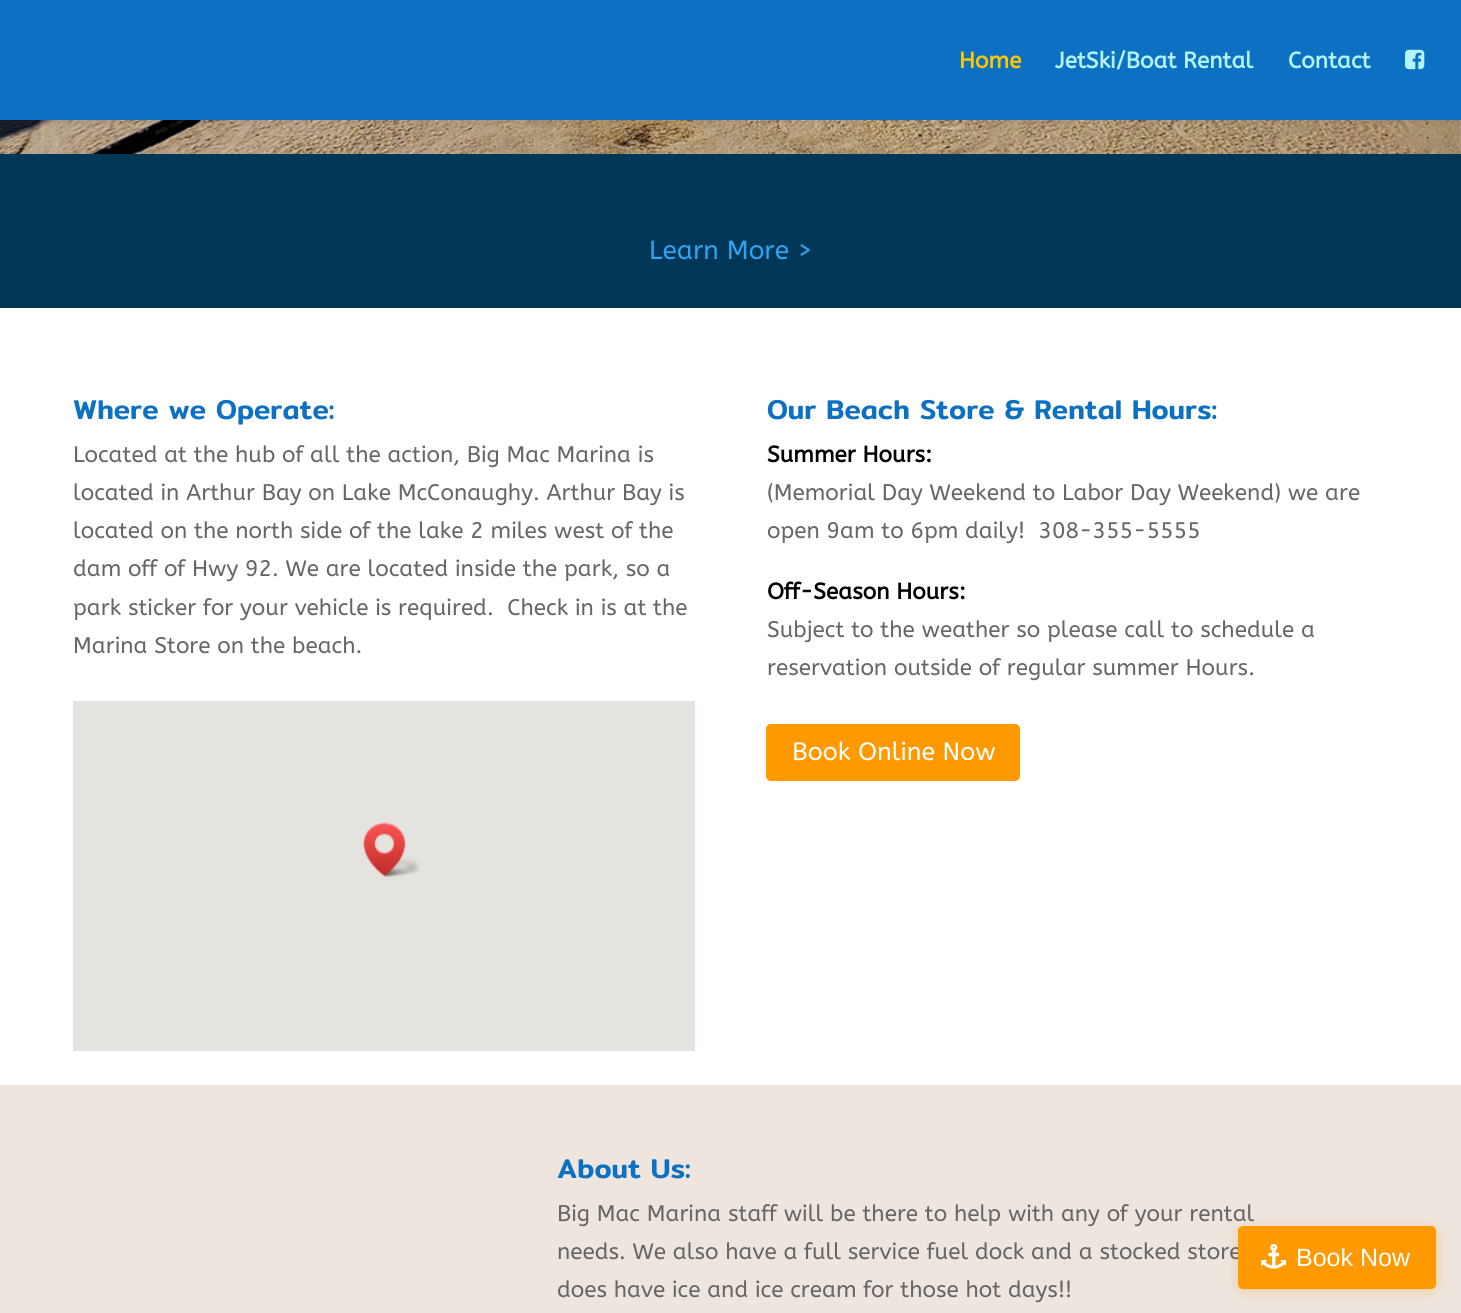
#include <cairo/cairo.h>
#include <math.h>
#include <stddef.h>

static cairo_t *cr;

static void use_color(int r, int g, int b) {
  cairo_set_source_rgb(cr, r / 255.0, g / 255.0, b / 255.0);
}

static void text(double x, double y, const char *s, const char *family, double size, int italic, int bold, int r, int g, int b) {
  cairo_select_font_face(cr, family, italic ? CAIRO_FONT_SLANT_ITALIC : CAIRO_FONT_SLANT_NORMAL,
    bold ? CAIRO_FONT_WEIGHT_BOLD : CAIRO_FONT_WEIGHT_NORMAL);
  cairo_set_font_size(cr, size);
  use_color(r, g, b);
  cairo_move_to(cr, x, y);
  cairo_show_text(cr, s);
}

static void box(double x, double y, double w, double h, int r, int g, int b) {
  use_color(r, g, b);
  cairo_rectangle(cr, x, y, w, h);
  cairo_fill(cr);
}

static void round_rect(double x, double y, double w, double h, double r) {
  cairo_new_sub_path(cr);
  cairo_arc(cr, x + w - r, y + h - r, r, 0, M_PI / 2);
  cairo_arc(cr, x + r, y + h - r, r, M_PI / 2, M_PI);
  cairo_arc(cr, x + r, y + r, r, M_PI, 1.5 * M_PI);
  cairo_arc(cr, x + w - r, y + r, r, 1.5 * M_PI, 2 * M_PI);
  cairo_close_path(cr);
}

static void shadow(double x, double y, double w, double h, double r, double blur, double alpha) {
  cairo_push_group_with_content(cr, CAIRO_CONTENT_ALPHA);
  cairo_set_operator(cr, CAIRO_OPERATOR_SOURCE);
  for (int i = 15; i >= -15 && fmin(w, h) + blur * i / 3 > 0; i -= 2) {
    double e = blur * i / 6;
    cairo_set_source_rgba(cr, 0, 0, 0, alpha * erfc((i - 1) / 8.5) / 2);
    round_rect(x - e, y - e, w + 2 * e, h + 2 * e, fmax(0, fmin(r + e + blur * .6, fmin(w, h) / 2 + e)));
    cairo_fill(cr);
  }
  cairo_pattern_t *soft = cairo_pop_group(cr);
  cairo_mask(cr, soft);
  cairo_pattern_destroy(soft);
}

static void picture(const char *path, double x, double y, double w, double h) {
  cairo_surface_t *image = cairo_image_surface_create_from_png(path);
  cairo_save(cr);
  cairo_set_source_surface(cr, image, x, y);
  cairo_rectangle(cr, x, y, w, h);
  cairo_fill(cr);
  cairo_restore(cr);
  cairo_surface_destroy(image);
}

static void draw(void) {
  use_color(255, 255, 255);
  cairo_paint(cr);
  picture("img_02.png", 0, 120, 1461, 34);
  use_color(0, 0, 0);
  shadow(0, 0, 1461, 120, 0, 4.5, 0.1);
  box(0, 0, 1461, 120, 12, 113, 195);
  picture("img_01.png", 1405, 49, 20, 21);
  box(0, 154, 1461, 154, 0, 54, 86);
  box(73, 701, 622, 350, 229, 227, 223);
  picture("img_03.png", 363, 822, 57, 55);
  use_color(255, 153, 0);
  round_rect(766, 724, 254, 57, 5);
  cairo_fill(cr);
  box(0, 1085, 1461, 228, 237, 229, 222);
  use_color(255, 153, 0);
  shadow(1238, 1229, 198, 62, 5, 6, 0.3);
  text(959, 68, "Home", "ABeeZee", 22.5, 0, 1, 255, 199, 0);
  text(1055, 68, "JetSki/Boat Rental", "ABeeZee", 22.5, 0, 1, 178, 244, 249);
  text(1288, 68, "Contact", "ABeeZee", 22.5, 0, 1, 178, 244, 249);
  text(649, 259, "Learn More >", "ABeeZee", 26.25, 0, 0, 46, 163, 242);
  text(73, 419, "Where we Operate:", "Mitr Medium", 27.5, 0, 0, 12, 113, 195);
  text(73, 462, "Located at the hub of all the action, Big Mac Marina is", "ABeeZee", 22.5, 0, 0, 102, 102, 102);
  text(73, 500, "located in Arthur Bay on Lake McConaughy. Arthur Bay is", "ABeeZee", 22.5, 0, 0, 102, 102, 102);
  text(73, 538, "located on the north side of the lake 2 miles west of the", "ABeeZee", 22.5, 0, 0, 102, 102, 102);
  text(73, 576, "dam off of Hwy 92. We are located inside the park, so a", "ABeeZee", 22.5, 0, 0, 102, 102, 102);
  text(73, 615, "park sticker for your vehicle is required.  Check in is at the", "ABeeZee", 22.5, 0, 0, 102, 102, 102);
  text(73, 653, "Marina Store on the beach.", "ABeeZee", 22.5, 0, 0, 102, 102, 102);
  text(767, 419, "Our Beach Store & Rental Hours:", "Mitr Medium", 27.5, 0, 0, 12, 113, 195);
  text(767, 462, "Summer Hours:", "ABeeZee", 22.5, 0, 1, 0, 0, 0);
  text(767, 500, "(Memorial Day Weekend to Labor Day Weekend) we are", "ABeeZee", 22.5, 0, 0, 102, 102, 102);
  text(767, 538, "open 9am to 6pm daily!  308-355-5555", "ABeeZee", 22.5, 0, 0, 102, 102, 102);
  text(767, 599, "Off-Season Hours:", "ABeeZee", 22.5, 0, 1, 0, 0, 0);
  text(767, 637, "Subject to the weather so please call to schedule a", "ABeeZee", 22.5, 0, 0, 102, 102, 102);
  text(767, 675, "reservation outside of regular summer Hours.", "ABeeZee", 22.5, 0, 0, 102, 102, 102);
  text(792, 760, "Book Online Now", "ABeeZee", 25, 0, 0, 255, 255, 255);
  text(557, 1178, "About Us:", "Mitr Medium", 27.5, 0, 0, 12, 113, 195);
  text(557, 1221, "Big Mac Marina staff will be there to help with any of your rental", "ABeeZee", 22.5, 0, 0, 102, 102, 102);
  text(557, 1259, "needs. We also have a full service fuel dock and a stocked store", "ABeeZee", 22.5, 0, 0, 102, 102, 102);
  text(557, 1297, "does have ice and ice cream for those hot days!!", "ABeeZee", 22.5, 0, 0, 102, 102, 102);
  use_color(255, 153, 0);
  round_rect(1238.5, 1226.5, 197, 62, 4.5);
  cairo_fill_preserve(cr);
  cairo_set_line_width(cr, 1);
  cairo_stroke(cr);
  picture("img_04.png", 1261, 1244, 25, 25);
  text(1296, 1266, "Book Now", "Liberation Sans", 25, 0, 0, 255, 255, 255);
}

int main(void) {
  cairo_surface_t *surface = cairo_image_surface_create(CAIRO_FORMAT_RGB24, 1461, 1313);
  cr = cairo_create(surface);
  cairo_font_options_t *options = cairo_font_options_create();
  cairo_font_options_set_hint_metrics(options, CAIRO_HINT_METRICS_OFF);
  cairo_font_options_set_hint_style(options, CAIRO_HINT_STYLE_NONE);
  cairo_set_font_options(cr, options);
  cairo_set_miter_limit(cr, 4);
  draw();
  cairo_surface_write_to_png(surface, "out.png");
  cairo_font_options_destroy(options);
  cairo_destroy(cr);
  cairo_surface_destroy(surface);
  return 0;
}
